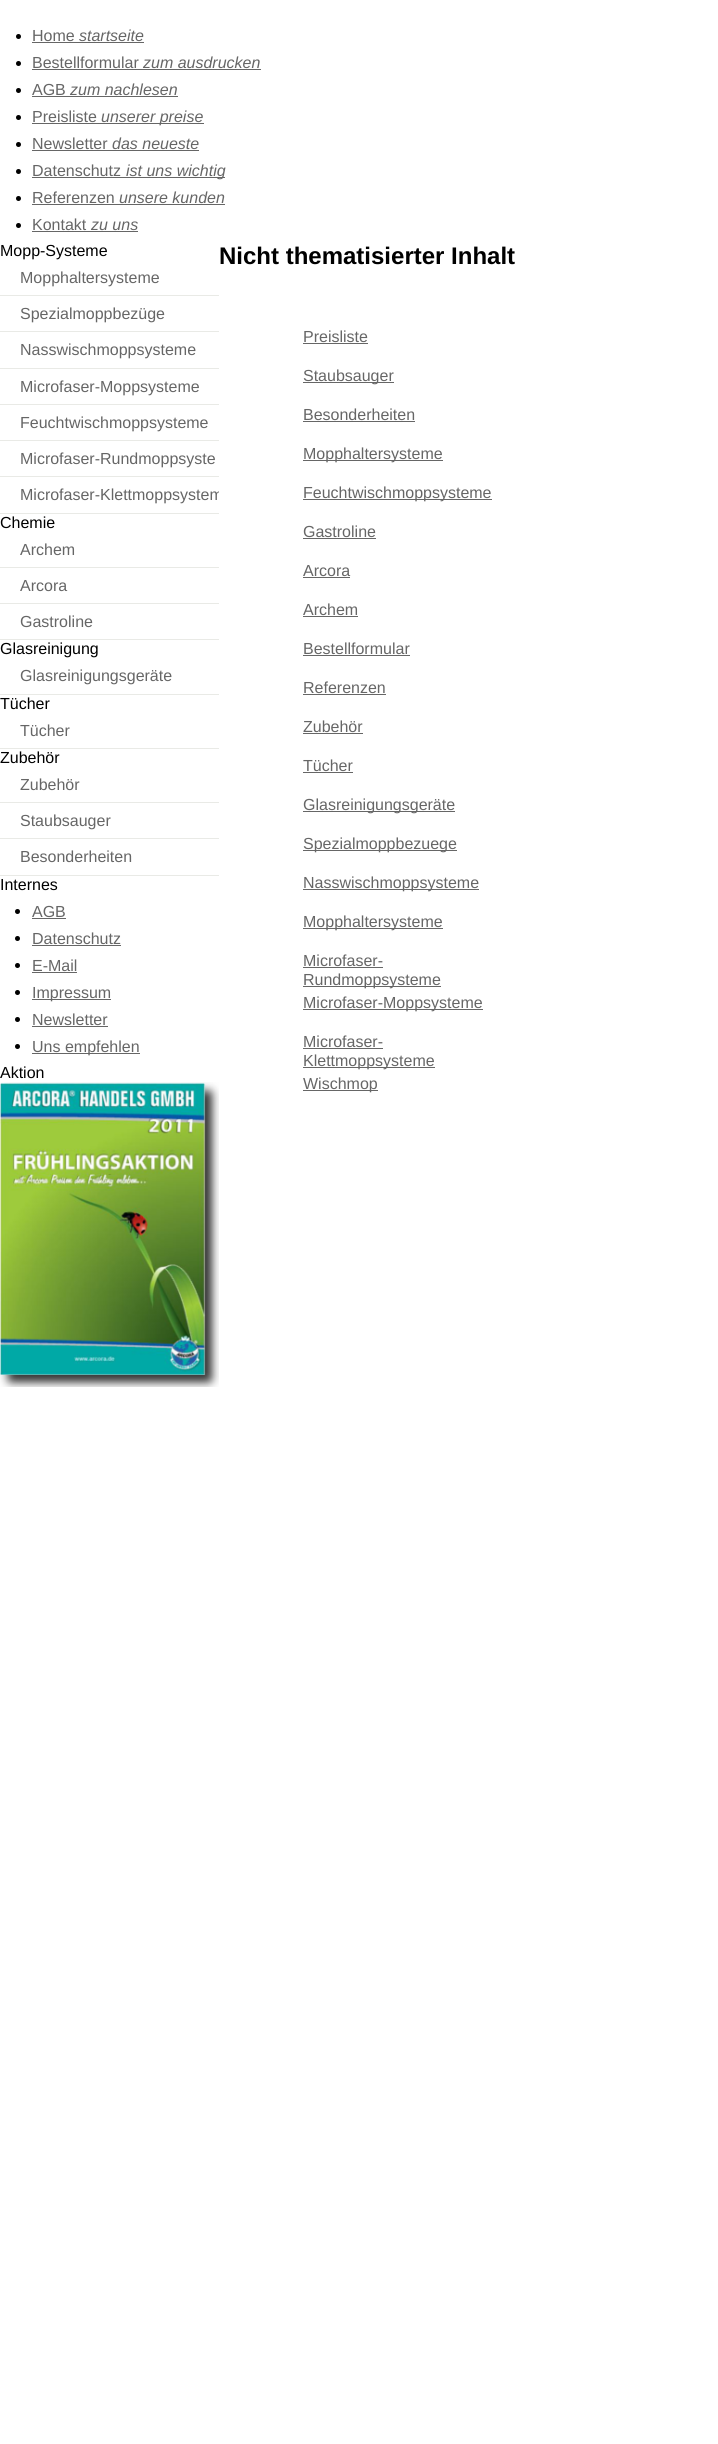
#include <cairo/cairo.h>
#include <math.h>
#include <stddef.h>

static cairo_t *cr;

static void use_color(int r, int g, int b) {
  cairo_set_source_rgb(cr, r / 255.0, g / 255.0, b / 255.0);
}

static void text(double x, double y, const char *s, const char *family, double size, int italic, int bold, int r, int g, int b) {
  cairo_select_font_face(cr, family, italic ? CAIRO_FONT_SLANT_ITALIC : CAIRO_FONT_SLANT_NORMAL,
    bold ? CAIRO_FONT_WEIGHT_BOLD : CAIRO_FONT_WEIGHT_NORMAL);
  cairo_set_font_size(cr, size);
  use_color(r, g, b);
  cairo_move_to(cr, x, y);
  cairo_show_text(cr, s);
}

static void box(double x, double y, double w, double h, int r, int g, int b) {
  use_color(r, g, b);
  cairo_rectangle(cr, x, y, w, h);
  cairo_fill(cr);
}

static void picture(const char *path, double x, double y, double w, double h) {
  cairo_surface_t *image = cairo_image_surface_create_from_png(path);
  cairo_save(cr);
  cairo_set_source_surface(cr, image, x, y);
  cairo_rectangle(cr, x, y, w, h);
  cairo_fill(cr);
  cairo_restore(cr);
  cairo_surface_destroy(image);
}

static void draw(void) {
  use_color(255, 255, 255);
  cairo_paint(cr);
  use_color(0, 0, 0);
  cairo_arc(cr, 18.5, 36.5, 2.5, 0, 2 * M_PI);
  cairo_fill(cr);
  box(32, 42, 112, 1, 102, 102, 102);
  use_color(0, 0, 0);
  cairo_arc(cr, 18.5, 63.5, 2.5, 0, 2 * M_PI);
  cairo_fill(cr);
  box(32, 69, 229, 1, 102, 102, 102);
  use_color(0, 0, 0);
  cairo_arc(cr, 18.5, 90.5, 2.5, 0, 2 * M_PI);
  cairo_fill(cr);
  box(32, 96, 146, 1, 102, 102, 102);
  use_color(0, 0, 0);
  cairo_arc(cr, 18.5, 117.5, 2.5, 0, 2 * M_PI);
  cairo_fill(cr);
  box(32, 123, 172, 1, 102, 102, 102);
  use_color(0, 0, 0);
  cairo_arc(cr, 18.5, 144.5, 2.5, 0, 2 * M_PI);
  cairo_fill(cr);
  box(32, 150, 167, 1, 102, 102, 102);
  use_color(0, 0, 0);
  cairo_arc(cr, 18.5, 171.5, 2.5, 0, 2 * M_PI);
  cairo_fill(cr);
  box(32, 177, 193, 1, 102, 102, 102);
  use_color(0, 0, 0);
  cairo_arc(cr, 18.5, 198.5, 2.5, 0, 2 * M_PI);
  cairo_fill(cr);
  box(32, 204, 193, 1, 102, 102, 102);
  use_color(0, 0, 0);
  cairo_arc(cr, 18.5, 225.5, 2.5, 0, 2 * M_PI);
  cairo_fill(cr);
  box(32, 231, 106, 1, 102, 102, 102);
  box(0, 295, 219, 1, 233, 234, 230);
  box(0, 331, 219, 1, 233, 234, 230);
  box(0, 368, 219, 1, 233, 234, 230);
  box(0, 404, 219, 1, 233, 234, 230);
  box(0, 440, 219, 1, 233, 234, 230);
  box(0, 476, 219, 1, 233, 234, 230);
  box(0, 513, 219, 1, 233, 234, 230);
  box(0, 567, 219, 1, 233, 234, 230);
  box(0, 603, 219, 1, 233, 234, 230);
  box(0, 639, 219, 1, 233, 234, 230);
  box(0, 694, 219, 1, 233, 234, 230);
  box(0, 748, 219, 1, 233, 234, 230);
  box(0, 802, 219, 1, 233, 234, 230);
  box(0, 838, 219, 1, 233, 234, 230);
  box(0, 875, 219, 1, 233, 234, 230);
  use_color(0, 0, 0);
  cairo_arc(cr, 17.5, 911.5, 2.5, 0, 2 * M_PI);
  cairo_fill(cr);
  box(32, 918, 34, 1, 102, 102, 102);
  use_color(0, 0, 0);
  cairo_arc(cr, 17.5, 938.5, 2.5, 0, 2 * M_PI);
  cairo_fill(cr);
  box(32, 945, 89, 1, 102, 102, 102);
  use_color(0, 0, 0);
  cairo_arc(cr, 17.5, 965.5, 2.5, 0, 2 * M_PI);
  cairo_fill(cr);
  box(32, 972, 45, 1, 102, 102, 102);
  use_color(0, 0, 0);
  cairo_arc(cr, 17.5, 992.5, 2.5, 0, 2 * M_PI);
  cairo_fill(cr);
  box(32, 999, 79, 1, 102, 102, 102);
  use_color(0, 0, 0);
  cairo_arc(cr, 17.5, 1019.5, 2.5, 0, 2 * M_PI);
  cairo_fill(cr);
  box(32, 1026, 76, 1, 102, 102, 102);
  use_color(0, 0, 0);
  cairo_arc(cr, 17.5, 1046.5, 2.5, 0, 2 * M_PI);
  cairo_fill(cr);
  box(32, 1053, 108, 1, 102, 102, 102);
  picture("img_01.png", 0, 1082, 219, 305);
  box(303, 343, 65, 1, 102, 102, 102);
  box(303, 382, 91, 1, 102, 102, 102);
  box(303, 421, 112, 1, 102, 102, 102);
  box(303, 460, 140, 1, 102, 102, 102);
  box(303, 499, 189, 1, 102, 102, 102);
  box(303, 538, 73, 1, 102, 102, 102);
  box(303, 577, 47, 1, 102, 102, 102);
  box(303, 616, 55, 1, 102, 102, 102);
  box(303, 655, 107, 1, 102, 102, 102);
  box(303, 694, 83, 1, 102, 102, 102);
  box(303, 733, 60, 1, 102, 102, 102);
  box(303, 772, 50, 1, 102, 102, 102);
  box(303, 811, 152, 1, 102, 102, 102);
  box(303, 850, 154, 1, 102, 102, 102);
  box(303, 889, 176, 1, 102, 102, 102);
  box(303, 928, 140, 1, 102, 102, 102);
  box(303, 967, 80, 1, 102, 102, 102);
  box(303, 986, 138, 1, 102, 102, 102);
  box(303, 1009, 180, 1, 102, 102, 102);
  box(303, 1048, 80, 1, 102, 102, 102);
  box(303, 1067, 132, 1, 102, 102, 102);
  box(303, 1090, 75, 1, 102, 102, 102);
  text(32, 41, "Home", "Liberation Sans", 16, 0, 0, 102, 102, 102);
  text(79, 41, "startseite", "Liberation Sans", 16, 1, 0, 102, 102, 102);
  text(32, 68, "Bestellformular", "Liberation Sans", 16, 0, 0, 102, 102, 102);
  text(143, 68, "zum ausdrucken", "Liberation Sans", 16, 1, 0, 102, 102, 102);
  text(32, 95, "AGB", "Liberation Sans", 16, 0, 0, 102, 102, 102);
  text(70, 95, "zum nachlesen", "Liberation Sans", 16, 1, 0, 102, 102, 102);
  text(32, 122, "Preisliste", "Liberation Sans", 16, 0, 0, 102, 102, 102);
  text(101, 122, "unserer preise", "Liberation Sans", 16, 1, 0, 102, 102, 102);
  text(32, 149, "Newsletter", "Liberation Sans", 16, 0, 0, 102, 102, 102);
  text(112, 149, "das neueste", "Liberation Sans", 16, 1, 0, 102, 102, 102);
  text(32, 176, "Datenschutz", "Liberation Sans", 16, 0, 0, 102, 102, 102);
  text(126, 176, "ist uns wichtig", "Liberation Sans", 16, 1, 0, 102, 102, 102);
  text(32, 203, "Referenzen", "Liberation Sans", 16, 0, 0, 102, 102, 102);
  text(119, 203, "unsere kunden", "Liberation Sans", 16, 1, 0, 102, 102, 102);
  text(32, 230, "Kontakt", "Liberation Sans", 16, 0, 0, 102, 102, 102);
  text(91, 230, "zu uns", "Liberation Sans", 16, 1, 0, 102, 102, 102);
  text(0, 256, "Mopp-Systeme", "Liberation Sans", 16, 0, 0, 0, 0, 0);
  text(20, 283, "Mopphaltersysteme", "Liberation Sans", 16, 0, 0, 102, 102, 102);
  text(20, 319, "Spezialmoppbezüge", "Liberation Sans", 16, 0, 0, 102, 102, 102);
  text(20, 355, "Nasswischmoppsysteme", "Liberation Sans", 16, 0, 0, 102, 102, 102);
  text(20, 392, "Microfaser-Moppsysteme", "Liberation Sans", 16, 0, 0, 102, 102, 102);
  text(20, 428, "Feuchtwischmoppsysteme", "Liberation Sans", 16, 0, 0, 102, 102, 102);
  text(20, 464, "Microfaser-Rundmoppsyste", "Liberation Sans", 16, 0, 0, 102, 102, 102);
  cairo_save(cr);
  cairo_rectangle(cr, 0, 260, 219, 254);
  cairo_clip(cr);
  text(20, 500, "Microfaser-Klettmoppsystem", "Liberation Sans", 16, 0, 0, 102, 102, 102);
  cairo_restore(cr);
  text(0, 528, "Chemie", "Liberation Sans", 16, 0, 0, 0, 0, 0);
  text(20, 555, "Archem", "Liberation Sans", 16, 0, 0, 102, 102, 102);
  text(20, 591, "Arcora", "Liberation Sans", 16, 0, 0, 102, 102, 102);
  text(20, 627, "Gastroline", "Liberation Sans", 16, 0, 0, 102, 102, 102);
  text(0, 654, "Glasreinigung", "Liberation Sans", 16, 0, 0, 0, 0, 0);
  text(20, 681, "Glasreinigungsgeräte", "Liberation Sans", 16, 0, 0, 102, 102, 102);
  text(0, 709, "Tücher", "Liberation Sans", 16, 0, 0, 0, 0, 0);
  text(20, 736, "Tücher", "Liberation Sans", 16, 0, 0, 102, 102, 102);
  text(0, 763, "Zubehör", "Liberation Sans", 16, 0, 0, 0, 0, 0);
  text(20, 790, "Zubehör", "Liberation Sans", 16, 0, 0, 102, 102, 102);
  text(20, 826, "Staubsauger", "Liberation Sans", 16, 0, 0, 102, 102, 102);
  text(20, 862, "Besonderheiten", "Liberation Sans", 16, 0, 0, 102, 102, 102);
  text(0, 890, "Internes", "Liberation Sans", 16, 0, 0, 0, 0, 0);
  text(32, 917, "AGB", "Liberation Sans", 16, 0, 0, 102, 102, 102);
  text(32, 944, "Datenschutz", "Liberation Sans", 16, 0, 0, 102, 102, 102);
  text(32, 971, "E-Mail", "Liberation Sans", 16, 0, 0, 102, 102, 102);
  text(32, 998, "Impressum", "Liberation Sans", 16, 0, 0, 102, 102, 102);
  text(32, 1025, "Newsletter", "Liberation Sans", 16, 0, 0, 102, 102, 102);
  text(32, 1052, "Uns empfehlen", "Liberation Sans", 16, 0, 0, 102, 102, 102);
  text(0, 1078, "Aktion", "Liberation Sans", 16, 0, 0, 0, 0, 0);
  text(219, 264, "Nicht thematisierter Inhalt", "Liberation Sans", 24, 0, 1, 0, 0, 0);
  text(303, 342, "Preisliste", "Liberation Sans", 16, 0, 0, 102, 102, 102);
  text(303, 381, "Staubsauger", "Liberation Sans", 16, 0, 0, 102, 102, 102);
  text(303, 420, "Besonderheiten", "Liberation Sans", 16, 0, 0, 102, 102, 102);
  text(303, 459, "Mopphaltersysteme", "Liberation Sans", 16, 0, 0, 102, 102, 102);
  text(303, 498, "Feuchtwischmoppsysteme", "Liberation Sans", 16, 0, 0, 102, 102, 102);
  text(303, 537, "Gastroline", "Liberation Sans", 16, 0, 0, 102, 102, 102);
  text(303, 576, "Arcora", "Liberation Sans", 16, 0, 0, 102, 102, 102);
  text(303, 615, "Archem", "Liberation Sans", 16, 0, 0, 102, 102, 102);
  text(303, 654, "Bestellformular", "Liberation Sans", 16, 0, 0, 102, 102, 102);
  text(303, 693, "Referenzen", "Liberation Sans", 16, 0, 0, 102, 102, 102);
  text(303, 732, "Zubehör", "Liberation Sans", 16, 0, 0, 102, 102, 102);
  text(303, 771, "Tücher", "Liberation Sans", 16, 0, 0, 102, 102, 102);
  text(303, 810, "Glasreinigungsgeräte", "Liberation Sans", 16, 0, 0, 102, 102, 102);
  text(303, 849, "Spezialmoppbezuege", "Liberation Sans", 16, 0, 0, 102, 102, 102);
  text(303, 888, "Nasswischmoppsysteme", "Liberation Sans", 16, 0, 0, 102, 102, 102);
  text(303, 927, "Mopphaltersysteme", "Liberation Sans", 16, 0, 0, 102, 102, 102);
  text(303, 966, "Microfaser-", "Liberation Sans", 16, 0, 0, 102, 102, 102);
  text(303, 985, "Rundmoppsysteme", "Liberation Sans", 16, 0, 0, 102, 102, 102);
  text(303, 1008, "Microfaser-Moppsysteme", "Liberation Sans", 16, 0, 0, 102, 102, 102);
  text(303, 1047, "Microfaser-", "Liberation Sans", 16, 0, 0, 102, 102, 102);
  text(303, 1066, "Klettmoppsysteme", "Liberation Sans", 16, 0, 0, 102, 102, 102);
  text(303, 1089, "Wischmop", "Liberation Sans", 16, 0, 0, 102, 102, 102);
}

int main(void) {
  cairo_surface_t *surface = cairo_image_surface_create(CAIRO_FORMAT_RGB24, 718, 2444);
  cr = cairo_create(surface);
  cairo_font_options_t *options = cairo_font_options_create();
  cairo_font_options_set_hint_metrics(options, CAIRO_HINT_METRICS_OFF);
  cairo_font_options_set_hint_style(options, CAIRO_HINT_STYLE_NONE);
  cairo_set_font_options(cr, options);
  cairo_set_miter_limit(cr, 4);
  draw();
  cairo_surface_write_to_png(surface, "out.png");
  cairo_font_options_destroy(options);
  cairo_destroy(cr);
  cairo_surface_destroy(surface);
  return 0;
}
